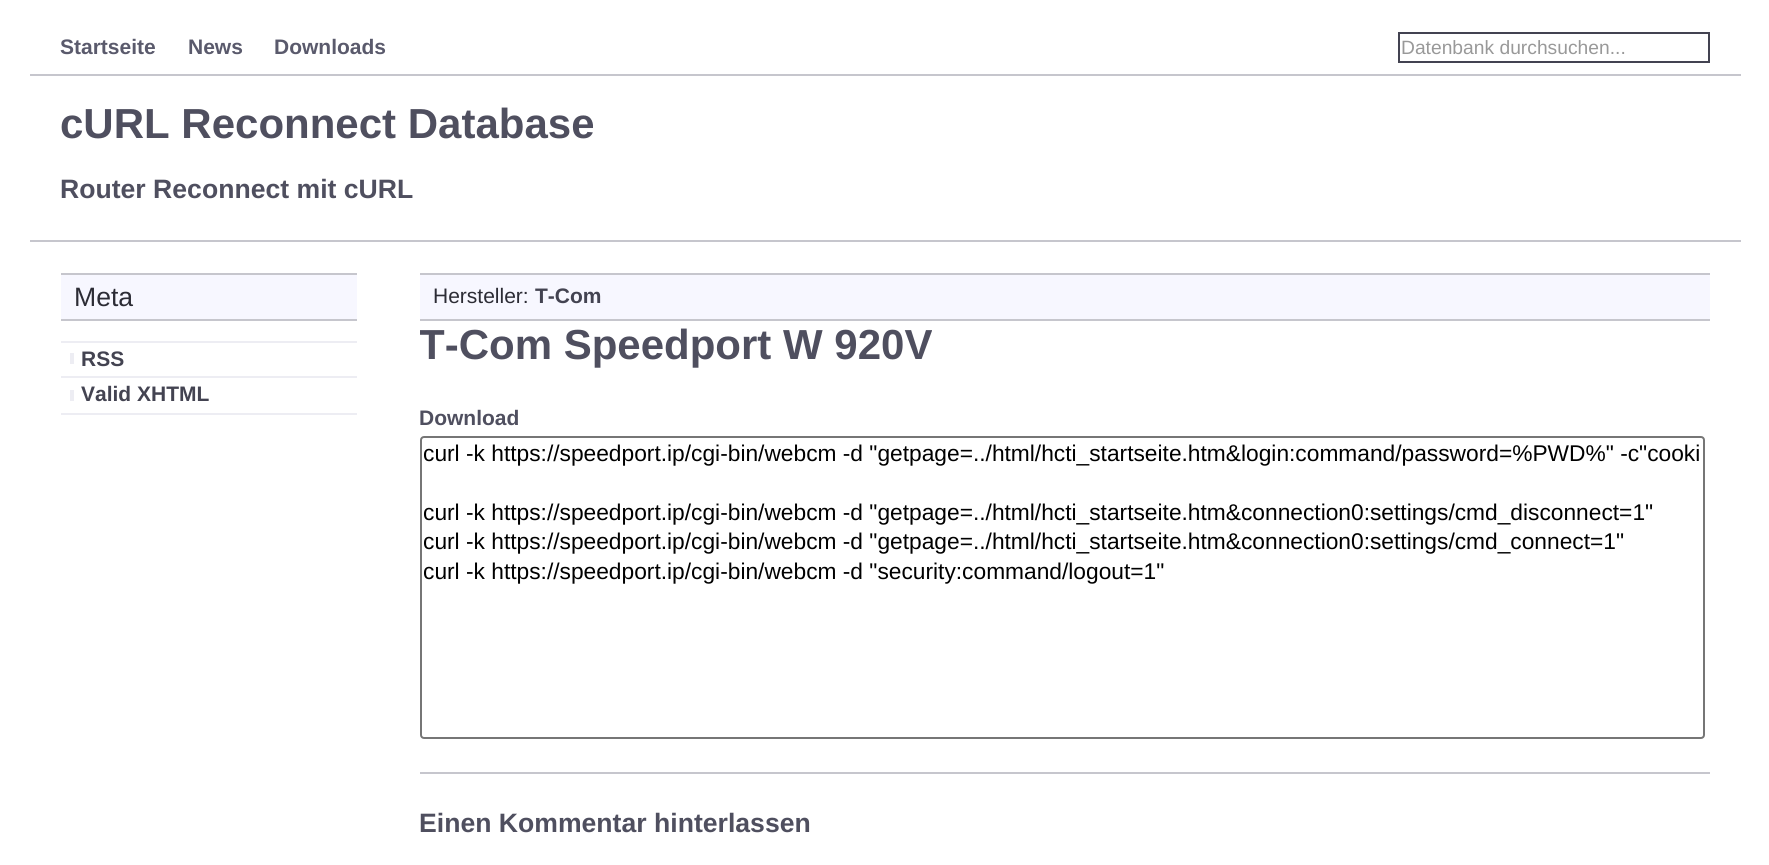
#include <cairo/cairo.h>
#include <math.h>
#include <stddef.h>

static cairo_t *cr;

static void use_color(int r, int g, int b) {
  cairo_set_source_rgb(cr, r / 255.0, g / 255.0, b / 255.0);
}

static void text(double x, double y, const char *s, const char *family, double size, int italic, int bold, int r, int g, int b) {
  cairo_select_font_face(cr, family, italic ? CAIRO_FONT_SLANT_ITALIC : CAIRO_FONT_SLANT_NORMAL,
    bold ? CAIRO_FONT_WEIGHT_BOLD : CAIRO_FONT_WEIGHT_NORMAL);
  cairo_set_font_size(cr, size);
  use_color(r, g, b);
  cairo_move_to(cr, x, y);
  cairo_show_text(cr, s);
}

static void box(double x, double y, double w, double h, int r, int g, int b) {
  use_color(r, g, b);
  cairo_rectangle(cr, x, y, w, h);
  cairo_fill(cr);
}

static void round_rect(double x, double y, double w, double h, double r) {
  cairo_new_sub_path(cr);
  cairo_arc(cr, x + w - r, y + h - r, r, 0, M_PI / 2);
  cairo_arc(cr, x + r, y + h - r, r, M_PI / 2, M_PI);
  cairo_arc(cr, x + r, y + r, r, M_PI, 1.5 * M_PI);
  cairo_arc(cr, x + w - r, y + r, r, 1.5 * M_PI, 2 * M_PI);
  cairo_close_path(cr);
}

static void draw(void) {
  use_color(255, 255, 255);
  cairo_paint(cr);
  box(30, 74, 1711, 2, 198, 198, 205);
  cairo_rectangle(cr, 1399, 33, 310, 29);
  use_color(67, 67, 81);
  cairo_stroke(cr);
  box(30, 240, 1711, 2, 198, 198, 205);
  box(61, 275, 296, 44, 247, 247, 255);
  box(61, 273, 296, 2, 198, 198, 205);
  box(61, 319, 296, 2, 198, 198, 205);
  box(61, 413, 296, 2, 237, 237, 243);
  box(61, 341, 296, 2, 237, 237, 243);
  box(70, 353, 4, 11, 237, 237, 243);
  box(61, 376, 296, 2, 237, 237, 243);
  box(70, 390, 4, 11, 237, 237, 243);
  box(420, 275, 1290, 44, 247, 247, 255);
  box(420, 273, 1290, 2, 198, 198, 205);
  box(420, 319, 1290, 2, 198, 198, 205);
  round_rect(421, 437, 1283, 301, 3);
  use_color(118, 118, 118);
  cairo_stroke(cr);
  box(420, 772, 1290, 2, 198, 198, 205);
  text(60, 54, "Startseite", "Liberation Sans", 21, 0, 1, 90, 90, 108);
  text(188, 54, "News", "Liberation Sans", 21, 0, 1, 90, 90, 108);
  text(274, 54, "Downloads", "Liberation Sans", 21, 0, 1, 90, 90, 108);
  text(1401, 54, "Datenbank durchsuchen...", "Liberation Sans", 19.25, 0, 0, 153, 153, 153);
  text(60, 138, "cURL Reconnect Database", "Liberation Sans", 42, 0, 1, 79, 79, 95);
  text(60, 198, "Router Reconnect mit cURL", "Liberation Sans", 26.6, 0, 1, 79, 79, 95);
  text(74, 306, "Meta", "Liberation Sans", 26.6, 0, 0, 44, 44, 53);
  text(81, 366, "RSS", "Liberation Sans", 21, 0, 1, 67, 67, 81);
  text(81, 401, "Valid XHTML", "Liberation Sans", 21, 0, 1, 67, 67, 81);
  text(433, 303, "Hersteller:", "Liberation Sans", 21, 0, 0, 44, 44, 53);
  text(535, 303, "T-Com", "Liberation Sans", 21, 0, 1, 67, 67, 81);
  cairo_save(cr);
  cairo_rectangle(cr, 420, 320, 1290, 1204);
  cairo_clip(cr);
  text(419, 359, "T-Com Speedport W 920V", "Liberation Sans", 42, 0, 1, 79, 79, 95);
  cairo_restore(cr);
  text(419, 425, "Download", "Liberation Sans", 21, 0, 1, 79, 79, 95);
  text(423, 461, "curl -k https://speedport.ip/cgi-bin/webcm -d \"getpage=../html/hcti_startseite.htm&login:command/password=%PWD%\" -c\"cooki", "Liberation Sans", 22.75, 0, 0, 0, 0, 0);
  text(423, 520, "curl -k https://speedport.ip/cgi-bin/webcm -d \"getpage=../html/hcti_startseite.htm&connection0:settings/cmd_disconnect=1\"", "Liberation Sans", 22.75, 0, 0, 0, 0, 0);
  text(423, 549, "curl -k https://speedport.ip/cgi-bin/webcm -d \"getpage=../html/hcti_startseite.htm&connection0:settings/cmd_connect=1\"", "Liberation Sans", 22.75, 0, 0, 0, 0, 0);
  text(423, 579, "curl -k https://speedport.ip/cgi-bin/webcm -d \"security:command/logout=1\"", "Liberation Sans", 22.75, 0, 0, 0, 0, 0);
  text(419, 832, "Einen Kommentar hinterlassen", "Liberation Sans", 26.6, 0, 1, 79, 79, 95);
}

int main(void) {
  cairo_surface_t *surface = cairo_image_surface_create(CAIRO_FORMAT_RGB24, 1769, 865);
  cr = cairo_create(surface);
  cairo_font_options_t *options = cairo_font_options_create();
  cairo_font_options_set_hint_metrics(options, CAIRO_HINT_METRICS_OFF);
  cairo_font_options_set_hint_style(options, CAIRO_HINT_STYLE_NONE);
  cairo_set_font_options(cr, options);
  cairo_set_miter_limit(cr, 4);
  draw();
  cairo_surface_write_to_png(surface, "out.png");
  cairo_font_options_destroy(options);
  cairo_destroy(cr);
  cairo_surface_destroy(surface);
  return 0;
}
